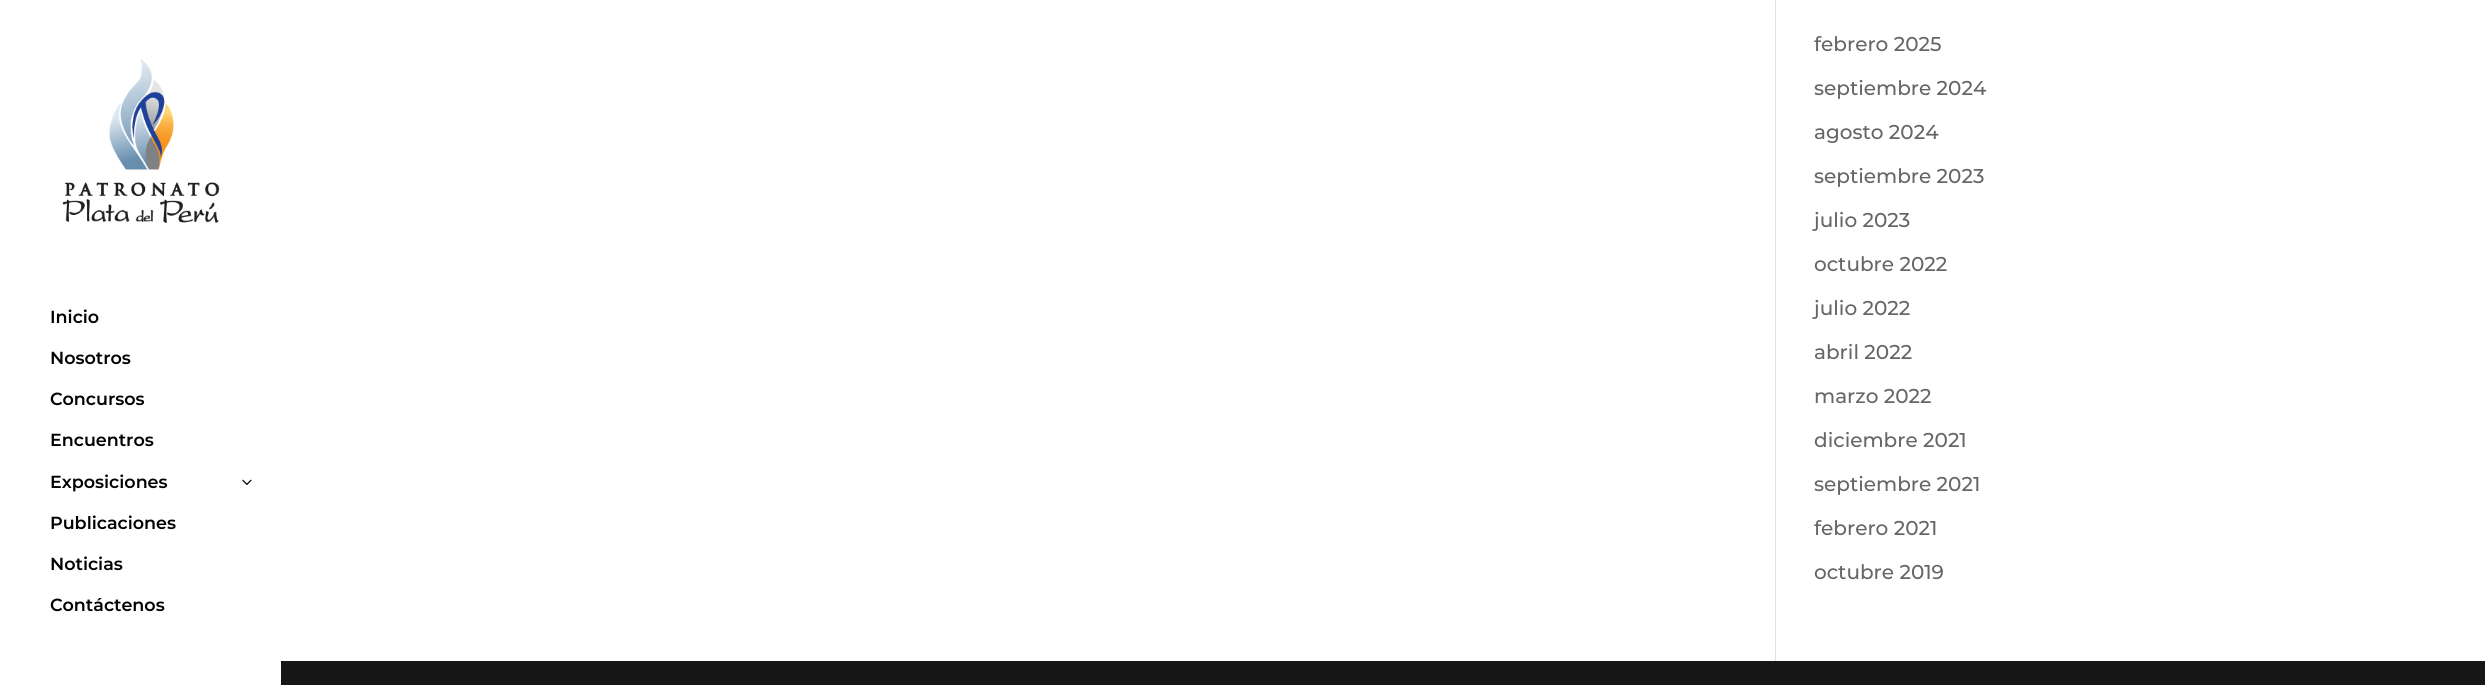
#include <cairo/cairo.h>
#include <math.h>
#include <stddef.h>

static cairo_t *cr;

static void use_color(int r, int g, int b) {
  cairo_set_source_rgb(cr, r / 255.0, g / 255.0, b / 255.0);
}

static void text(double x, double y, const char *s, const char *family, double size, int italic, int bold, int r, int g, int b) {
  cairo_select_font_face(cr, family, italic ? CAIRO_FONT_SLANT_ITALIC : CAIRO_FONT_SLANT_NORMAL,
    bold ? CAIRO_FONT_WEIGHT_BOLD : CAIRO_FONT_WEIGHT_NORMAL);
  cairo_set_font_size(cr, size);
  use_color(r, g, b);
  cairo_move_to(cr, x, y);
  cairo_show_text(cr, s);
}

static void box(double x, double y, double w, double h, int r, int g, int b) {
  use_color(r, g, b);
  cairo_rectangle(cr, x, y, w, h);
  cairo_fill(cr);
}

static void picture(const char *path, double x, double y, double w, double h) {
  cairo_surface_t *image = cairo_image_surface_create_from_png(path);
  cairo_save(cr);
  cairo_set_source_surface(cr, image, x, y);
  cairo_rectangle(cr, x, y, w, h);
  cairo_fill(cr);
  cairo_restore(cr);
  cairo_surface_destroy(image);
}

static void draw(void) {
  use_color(255, 255, 255);
  cairo_paint(cr);
  picture("img_01.png", 62, 59, 158, 164);
  picture("img_02.png", 242, 479, 10, 6);
  box(1775, 0, 1, 661, 226, 226, 226);
  box(281, 661, 2204, 24, 23, 23, 23);
  text(50, 323, "Inicio", "Montserrat SemiBold", 17.5, 0, 0, 0, 0, 0);
  text(50, 364, "Nosotros", "Montserrat SemiBold", 17.5, 0, 0, 0, 0, 0);
  text(50, 405, "Concursos", "Montserrat SemiBold", 17.5, 0, 0, 0, 0, 0);
  text(50, 446, "Encuentros", "Montserrat SemiBold", 17.5, 0, 0, 0, 0, 0);
  text(50, 488, "Exposiciones", "Montserrat SemiBold", 17.5, 0, 0, 0, 0, 0);
  text(50, 529, "Publicaciones", "Montserrat SemiBold", 17.5, 0, 0, 0, 0, 0);
  text(50, 570, "Noticias", "Montserrat SemiBold", 17.5, 0, 0, 0, 0, 0);
  text(50, 611, "Contáctenos", "Montserrat SemiBold", 17.5, 0, 0, 0, 0, 0);
  text(1814, 51, "febrero 2025", "Montserrat Medium", 20, 0, 0, 102, 102, 102);
  text(1814, 95, "septiembre 2024", "Montserrat Medium", 20, 0, 0, 102, 102, 102);
  text(1814, 139, "agosto 2024", "Montserrat Medium", 20, 0, 0, 102, 102, 102);
  text(1814, 183, "septiembre 2023", "Montserrat Medium", 20, 0, 0, 102, 102, 102);
  text(1814, 227, "julio 2023", "Montserrat Medium", 20, 0, 0, 102, 102, 102);
  text(1814, 271, "octubre 2022", "Montserrat Medium", 20, 0, 0, 102, 102, 102);
  text(1814, 315, "julio 2022", "Montserrat Medium", 20, 0, 0, 102, 102, 102);
  text(1814, 359, "abril 2022", "Montserrat Medium", 20, 0, 0, 102, 102, 102);
  text(1814, 403, "marzo 2022", "Montserrat Medium", 20, 0, 0, 102, 102, 102);
  text(1814, 447, "diciembre 2021", "Montserrat Medium", 20, 0, 0, 102, 102, 102);
  text(1814, 491, "septiembre 2021", "Montserrat Medium", 20, 0, 0, 102, 102, 102);
  text(1814, 535, "febrero 2021", "Montserrat Medium", 20, 0, 0, 102, 102, 102);
  text(1814, 579, "octubre 2019", "Montserrat Medium", 20, 0, 0, 102, 102, 102);
}

int main(void) {
  cairo_surface_t *surface = cairo_image_surface_create(CAIRO_FORMAT_RGB24, 2485, 685);
  cr = cairo_create(surface);
  cairo_font_options_t *options = cairo_font_options_create();
  cairo_font_options_set_hint_metrics(options, CAIRO_HINT_METRICS_OFF);
  cairo_font_options_set_hint_style(options, CAIRO_HINT_STYLE_NONE);
  cairo_set_font_options(cr, options);
  cairo_set_miter_limit(cr, 4);
  draw();
  cairo_surface_write_to_png(surface, "out.png");
  cairo_font_options_destroy(options);
  cairo_destroy(cr);
  cairo_surface_destroy(surface);
  return 0;
}
